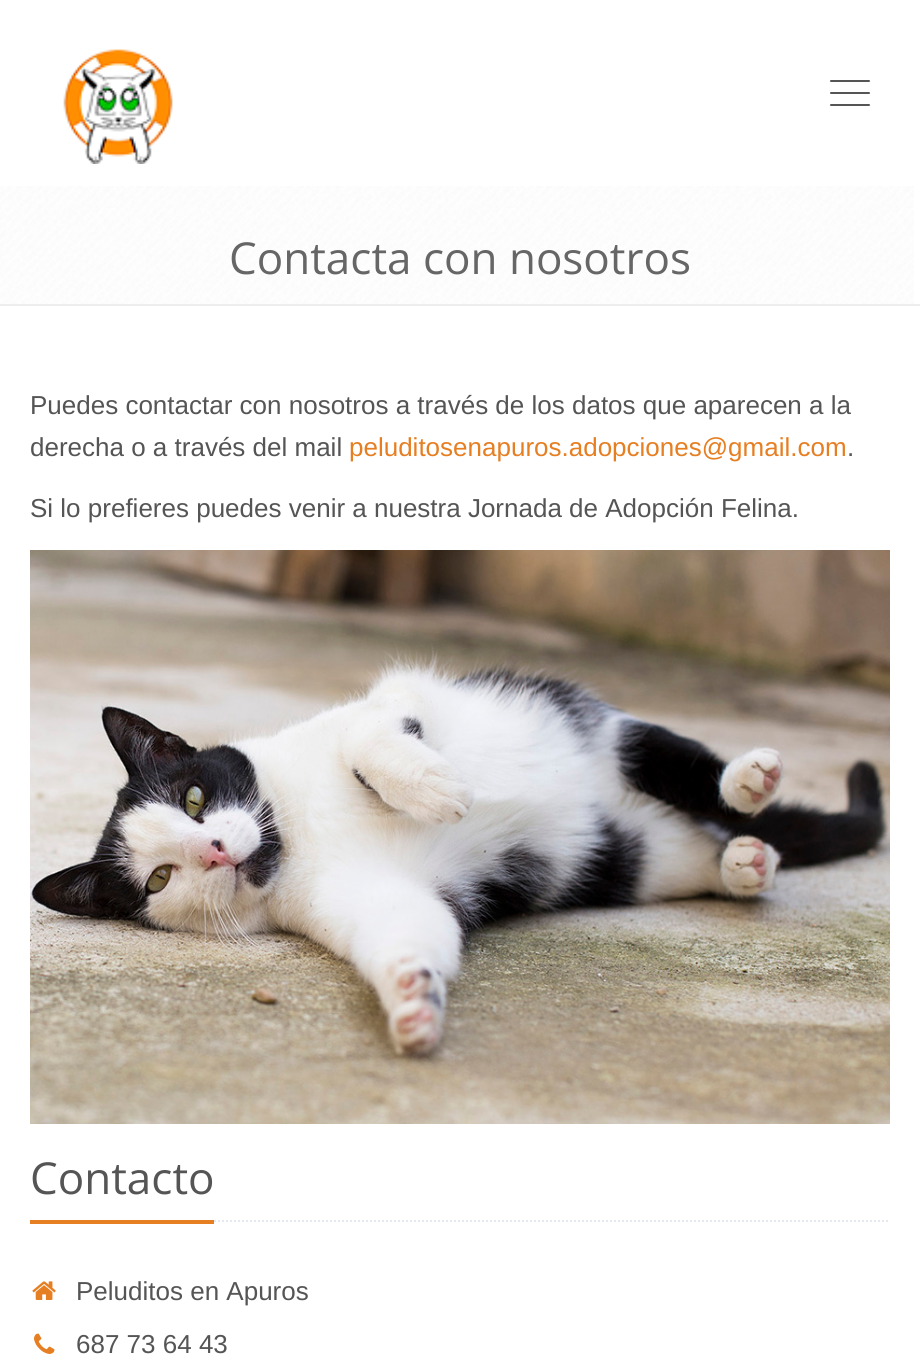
#include <cairo/cairo.h>
#include <math.h>
#include <stddef.h>

static cairo_t *cr;

static void use_color(int r, int g, int b) {
  cairo_set_source_rgb(cr, r / 255.0, g / 255.0, b / 255.0);
}

static void text(double x, double y, const char *s, const char *family, double size, int italic, int bold, int r, int g, int b) {
  cairo_select_font_face(cr, family, italic ? CAIRO_FONT_SLANT_ITALIC : CAIRO_FONT_SLANT_NORMAL,
    bold ? CAIRO_FONT_WEIGHT_BOLD : CAIRO_FONT_WEIGHT_NORMAL);
  cairo_set_font_size(cr, size);
  use_color(r, g, b);
  cairo_move_to(cr, x, y);
  cairo_show_text(cr, s);
}

static void box(double x, double y, double w, double h, int r, int g, int b) {
  use_color(r, g, b);
  cairo_rectangle(cr, x, y, w, h);
  cairo_fill(cr);
}

static void round_rect(double x, double y, double w, double h, double r) {
  cairo_new_sub_path(cr);
  cairo_arc(cr, x + w - r, y + h - r, r, 0, M_PI / 2);
  cairo_arc(cr, x + r, y + h - r, r, M_PI / 2, M_PI);
  cairo_arc(cr, x + r, y + r, r, M_PI, 1.5 * M_PI);
  cairo_arc(cr, x + w - r, y + r, r, 1.5 * M_PI, 2 * M_PI);
  cairo_close_path(cr);
}

static void picture(const char *path, double x, double y, double w, double h) {
  cairo_surface_t *image = cairo_image_surface_create_from_png(path);
  cairo_save(cr);
  cairo_set_source_surface(cr, image, x, y);
  cairo_rectangle(cr, x, y, w, h);
  cairo_fill(cr);
  cairo_restore(cr);
  cairo_surface_destroy(image);
}

static void draw(void) {
  use_color(255, 255, 255);
  cairo_paint(cr);
  picture("img_01.png", 63, 49, 110, 115);
  use_color(85, 85, 85);
  round_rect(830, 80, 40, 2, 1);
  cairo_fill(cr);
  round_rect(830, 92, 40, 2, 1);
  cairo_fill(cr);
  round_rect(830, 104, 40, 2, 1);
  cairo_fill(cr);
  picture("img_02.png", 0, 186, 914, 118);
  box(0, 304, 920, 2, 238, 238, 238);
  picture("img_03.png", 30, 550, 860, 574);
  cairo_new_path(cr);
  cairo_move_to(cr, 30, 1221);
  cairo_line_to(cr, 890, 1221);
  use_color(228, 233, 240);
  cairo_set_dash(cr, (double[]){2, 2}, 2, 0);
  cairo_stroke(cr);
  box(30, 1220, 184, 4, 230, 126, 34);
  picture("img_04.png", 32, 1281, 24, 19);
  picture("img_05.png", 34, 1333, 21, 21);
  text(229, 274, "Contacta con nosotros", "Open Sans", 44, 0, 0, 102, 102, 102);
  text(30, 414, "Puedes contactar con nosotros a través de los datos que aparecen a la", "Liberation Sans", 26, 0, 0, 85, 85, 85);
  text(30, 456, "derecha o a través del mail", "Liberation Sans", 26, 0, 0, 85, 85, 85);
  text(349, 456, "peluditosenapuros.adopciones@gmail.com", "Liberation Sans", 26, 0, 0, 230, 126, 34);
  text(847, 456, ".", "Liberation Sans", 26, 0, 0, 85, 85, 85);
  text(30, 517, "Si lo prefieres puedes venir a nuestra Jornada de Adopción Felina.", "Liberation Sans", 26, 0, 0, 85, 85, 85);
  text(30, 1194, "Contacto", "Open Sans", 44, 0, 0, 85, 85, 85);
  text(76, 1300, "Peluditos en Apuros", "Liberation Sans", 26, 0, 0, 85, 85, 85);
  text(76, 1353, "687 73 64 43", "Liberation Sans", 26, 0, 0, 85, 85, 85);
}

int main(void) {
  cairo_surface_t *surface = cairo_image_surface_create(CAIRO_FORMAT_RGB24, 920, 1357);
  cr = cairo_create(surface);
  cairo_font_options_t *options = cairo_font_options_create();
  cairo_font_options_set_hint_metrics(options, CAIRO_HINT_METRICS_OFF);
  cairo_font_options_set_hint_style(options, CAIRO_HINT_STYLE_NONE);
  cairo_set_font_options(cr, options);
  cairo_set_miter_limit(cr, 4);
  draw();
  cairo_surface_write_to_png(surface, "out.png");
  cairo_font_options_destroy(options);
  cairo_destroy(cr);
  cairo_surface_destroy(surface);
  return 0;
}
